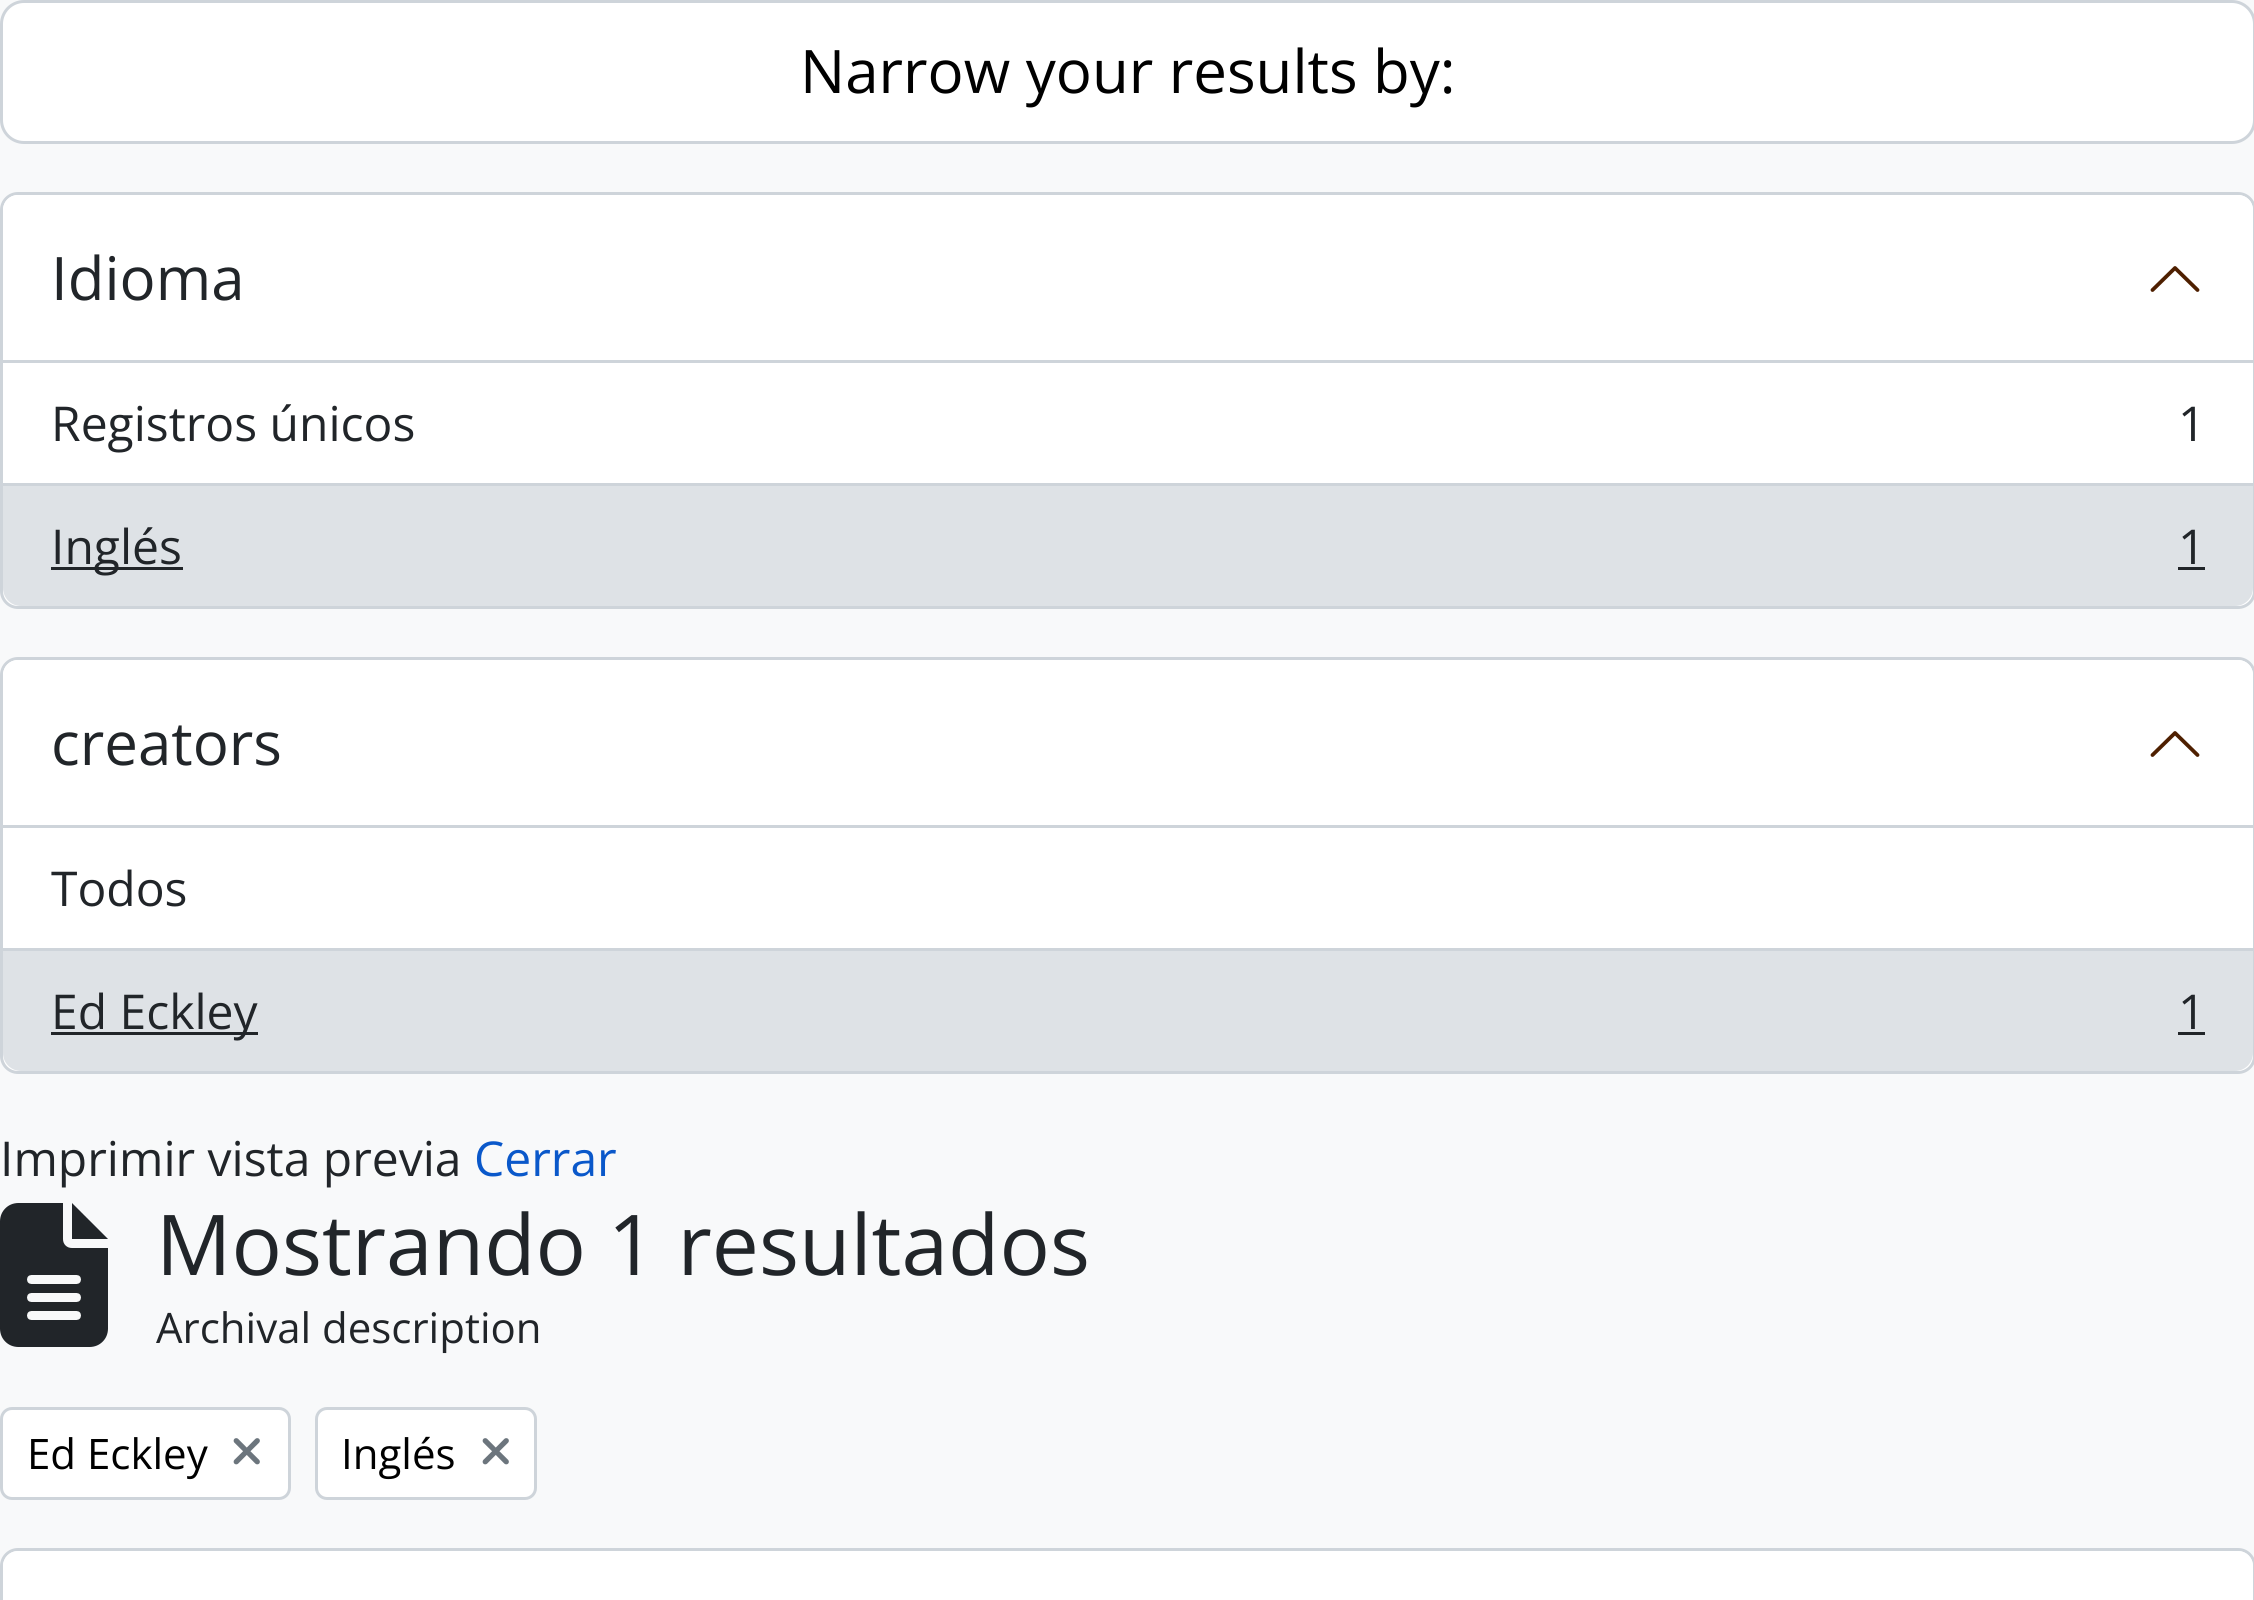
#include <cairo/cairo.h>
#include <math.h>
#include <stddef.h>

static cairo_t *cr;

static void use_color(int r, int g, int b) {
  cairo_set_source_rgb(cr, r / 255.0, g / 255.0, b / 255.0);
}

static void text(double x, double y, const char *s, const char *family, double size, int italic, int bold, int r, int g, int b) {
  cairo_select_font_face(cr, family, italic ? CAIRO_FONT_SLANT_ITALIC : CAIRO_FONT_SLANT_NORMAL,
    bold ? CAIRO_FONT_WEIGHT_BOLD : CAIRO_FONT_WEIGHT_NORMAL);
  cairo_set_font_size(cr, size);
  use_color(r, g, b);
  cairo_move_to(cr, x, y);
  cairo_show_text(cr, s);
}

static void box(double x, double y, double w, double h, int r, int g, int b) {
  use_color(r, g, b);
  cairo_rectangle(cr, x, y, w, h);
  cairo_fill(cr);
}

static void round_rect(double x, double y, double w, double h, double r) {
  cairo_new_sub_path(cr);
  cairo_arc(cr, x + w - r, y + h - r, r, 0, M_PI / 2);
  cairo_arc(cr, x + r, y + h - r, r, M_PI / 2, M_PI);
  cairo_arc(cr, x + r, y + r, r, M_PI, 1.5 * M_PI);
  cairo_arc(cr, x + w - r, y + r, r, 1.5 * M_PI, 2 * M_PI);
  cairo_close_path(cr);
}

static void picture(const char *path, double x, double y, double w, double h) {
  cairo_surface_t *image = cairo_image_surface_create_from_png(path);
  cairo_save(cr);
  cairo_set_source_surface(cr, image, x, y);
  cairo_rectangle(cr, x, y, w, h);
  cairo_fill(cr);
  cairo_restore(cr);
  cairo_surface_destroy(image);
}

static void draw(void) {
  use_color(248, 249, 250);
  cairo_paint(cr);
  use_color(255, 255, 255);
  round_rect(1.5, 1.5, 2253, 141, 22.5);
  cairo_fill_preserve(cr);
  use_color(206, 212, 218);
  cairo_set_line_width(cr, 3);
  cairo_stroke(cr);
  use_color(255, 255, 255);
  round_rect(1.5, 193.5, 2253, 414, 16.5);
  cairo_fill_preserve(cr);
  use_color(206, 212, 218);
  cairo_stroke(cr);
  use_color(255, 255, 255);
  cairo_new_path(cr);
  cairo_move_to(cr, 18, 195);
  cairo_line_to(cr, 2238, 195);
  cairo_curve_to(cr, 2246.5, 195, 2253, 201.5, 2253, 210);
  cairo_line_to(cr, 2253, 363);
  cairo_line_to(cr, 3, 363);
  cairo_line_to(cr, 3, 210);
  cairo_curve_to(cr, 3, 201.5, 9.5, 195, 18, 195);
  cairo_close_path(cr);
  cairo_fill(cr);
  box(3, 360, 2250, 3, 206, 212, 218);
  cairo_new_path(cr);
  cairo_move_to(cr, 2197.5, 290);
  cairo_line_to(cr, 2175, 268);
  cairo_line_to(cr, 2152.5, 290);
  use_color(78, 31, 0);
  cairo_set_line_width(cr, 3.8);
  cairo_set_line_cap(cr, CAIRO_LINE_CAP_ROUND);
  cairo_set_line_join(cr, CAIRO_LINE_JOIN_ROUND);
  cairo_stroke(cr);
  box(3, 483, 2250, 3, 206, 212, 218);
  use_color(222, 226, 230);
  cairo_new_path(cr);
  cairo_move_to(cr, 3, 486);
  cairo_line_to(cr, 2253, 486);
  cairo_line_to(cr, 2253, 588);
  cairo_curve_to(cr, 2253, 598, 2245, 606, 2235, 606);
  cairo_line_to(cr, 21, 606);
  cairo_curve_to(cr, 11, 606, 3, 598, 3, 588);
  cairo_close_path(cr);
  cairo_fill(cr);
  box(51, 567, 132, 3, 33, 37, 41);
  box(2178, 567, 27, 3, 33, 37, 41);
  use_color(255, 255, 255);
  round_rect(1.5, 658.5, 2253, 414, 16.5);
  cairo_fill_preserve(cr);
  use_color(206, 212, 218);
  cairo_set_line_width(cr, 3);
  cairo_set_line_cap(cr, CAIRO_LINE_CAP_BUTT);
  cairo_set_line_join(cr, CAIRO_LINE_JOIN_MITER);
  cairo_stroke(cr);
  use_color(255, 255, 255);
  cairo_new_path(cr);
  cairo_move_to(cr, 18, 660);
  cairo_line_to(cr, 2238, 660);
  cairo_curve_to(cr, 2246.5, 660, 2253, 666.5, 2253, 675);
  cairo_line_to(cr, 2253, 828);
  cairo_line_to(cr, 3, 828);
  cairo_line_to(cr, 3, 675);
  cairo_curve_to(cr, 3, 666.5, 9.5, 660, 18, 660);
  cairo_close_path(cr);
  cairo_fill(cr);
  box(3, 825, 2250, 3, 206, 212, 218);
  cairo_new_path(cr);
  cairo_move_to(cr, 2197.5, 755);
  cairo_line_to(cr, 2175, 733);
  cairo_line_to(cr, 2152.5, 755);
  use_color(78, 31, 0);
  cairo_set_line_width(cr, 3.8);
  cairo_set_line_cap(cr, CAIRO_LINE_CAP_ROUND);
  cairo_set_line_join(cr, CAIRO_LINE_JOIN_ROUND);
  cairo_stroke(cr);
  box(3, 948, 2250, 3, 206, 212, 218);
  use_color(222, 226, 230);
  cairo_new_path(cr);
  cairo_move_to(cr, 3, 951);
  cairo_line_to(cr, 2253, 951);
  cairo_line_to(cr, 2253, 1053);
  cairo_curve_to(cr, 2253, 1063, 2245, 1071, 2235, 1071);
  cairo_line_to(cr, 21, 1071);
  cairo_curve_to(cr, 11, 1071, 3, 1063, 3, 1053);
  cairo_close_path(cr);
  cairo_fill(cr);
  box(51, 1032, 207, 3, 33, 37, 41);
  box(2178, 1032, 27, 3, 33, 37, 41);
  picture("img_01.png", 0, 1203, 108, 144);
  use_color(255, 255, 255);
  round_rect(1.5, 1408.5, 288, 90, 10.5);
  cairo_fill_preserve(cr);
  use_color(206, 212, 218);
  cairo_set_line_width(cr, 3);
  cairo_set_line_cap(cr, CAIRO_LINE_CAP_BUTT);
  cairo_set_line_join(cr, CAIRO_LINE_JOIN_MITER);
  cairo_stroke(cr);
  picture("img_02.png", 233, 1438, 27, 27);
  use_color(255, 255, 255);
  round_rect(316.5, 1408.5, 219, 90, 10.5);
  cairo_fill_preserve(cr);
  use_color(206, 212, 218);
  cairo_stroke(cr);
  picture("img_02.png", 482, 1438, 27, 27);
  round_rect(1.5, 1549.5, 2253, 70, 16.5);
  cairo_stroke(cr);
  use_color(255, 255, 255);
  round_rect(3, 1551, 2250, 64, 15);
  cairo_fill(cr);
  text(800, 93, "Narrow your results by:", "Open Sans", 60, 0, 0, 0, 0, 0);
  text(51, 300, "Idioma", "Open Sans", 60, 0, 0, 33, 37, 41);
  text(51, 441, "Registros únicos", "Open Sans", 48, 0, 0, 33, 37, 41);
  text(2178, 441, "1", "Open Sans", 48, 0, 0, 33, 37, 41);
  text(51, 564, "Inglés", "Open Sans", 48, 0, 0, 33, 37, 41);
  text(2178, 564, "1", "Open Sans", 48, 0, 0, 33, 37, 41);
  text(51, 765, "creators", "Open Sans", 60, 0, 0, 33, 37, 41);
  text(51, 906, "Todos", "Open Sans", 48, 0, 0, 33, 37, 41);
  text(51, 1029, "Ed Eckley", "Open Sans", 48, 0, 0, 33, 37, 41);
  text(2178, 1029, "1", "Open Sans", 48, 0, 0, 33, 37, 41);
  text(0, 1176, "Imprimir vista previa", "Open Sans", 48, 0, 0, 33, 37, 41);
  text(474, 1176, "Cerrar", "Open Sans", 48, 0, 0, 10, 88, 202);
  text(156, 1275, "Mostrando 1 resultados", "Open Sans", 83.9, 0, 0, 33, 37, 41);
  text(156, 1343, "Archival description", "Open Sans", 42, 0, 0, 33, 37, 41);
  text(27, 1469, "Ed Eckley", "Open Sans", 42, 0, 0, 0, 0, 0);
  text(341, 1469, "Inglés", "Open Sans", 42, 0, 0, 0, 0, 0);
}

int main(void) {
  cairo_surface_t *surface = cairo_image_surface_create(CAIRO_FORMAT_RGB24, 2254, 1600);
  cr = cairo_create(surface);
  cairo_font_options_t *options = cairo_font_options_create();
  cairo_font_options_set_hint_metrics(options, CAIRO_HINT_METRICS_OFF);
  cairo_font_options_set_hint_style(options, CAIRO_HINT_STYLE_NONE);
  cairo_set_font_options(cr, options);
  cairo_set_miter_limit(cr, 4);
  draw();
  cairo_surface_write_to_png(surface, "out.png");
  cairo_font_options_destroy(options);
  cairo_destroy(cr);
  cairo_surface_destroy(surface);
  return 0;
}
